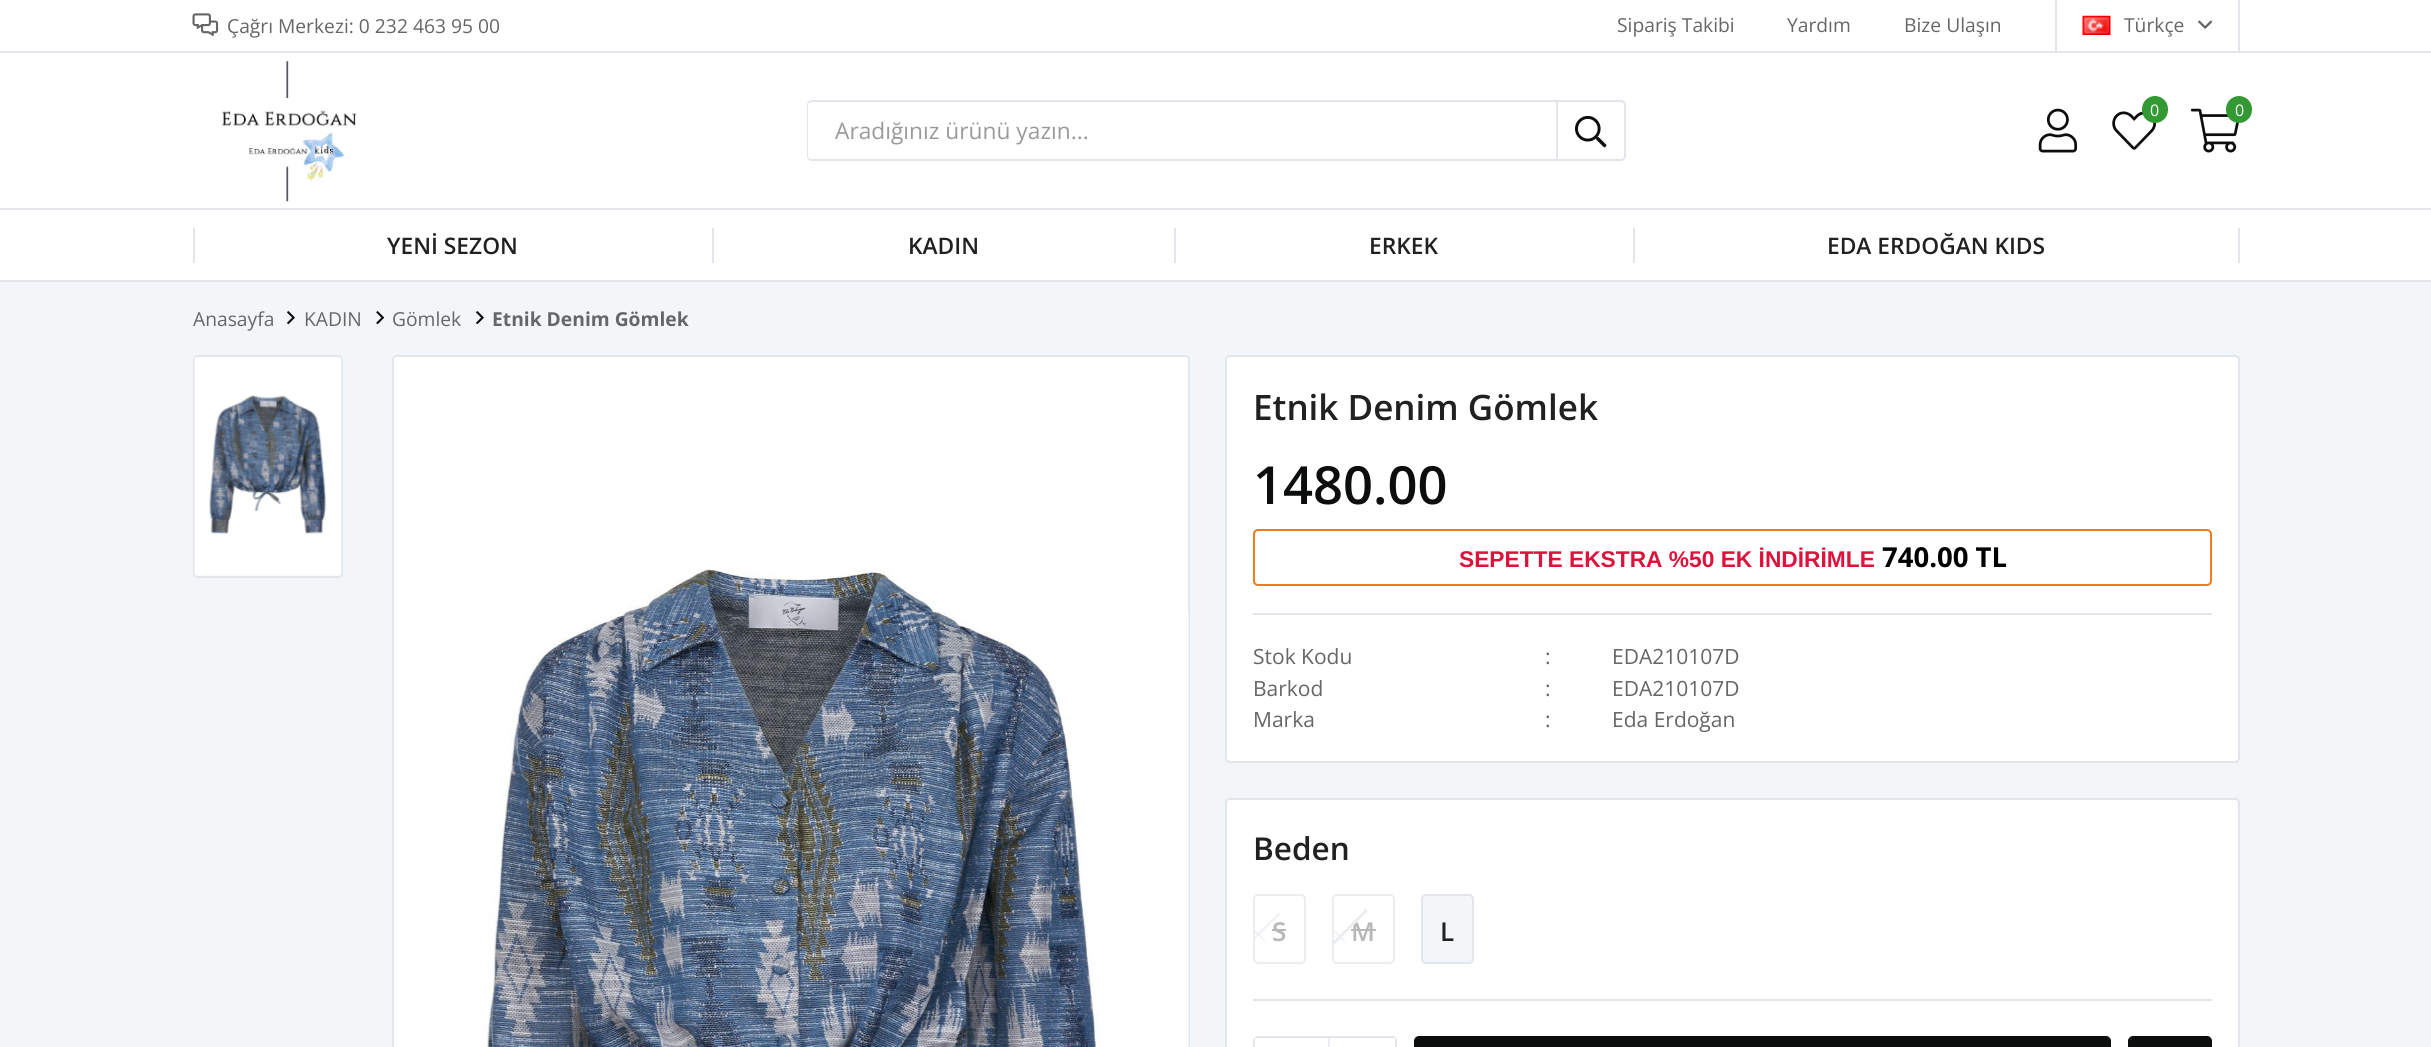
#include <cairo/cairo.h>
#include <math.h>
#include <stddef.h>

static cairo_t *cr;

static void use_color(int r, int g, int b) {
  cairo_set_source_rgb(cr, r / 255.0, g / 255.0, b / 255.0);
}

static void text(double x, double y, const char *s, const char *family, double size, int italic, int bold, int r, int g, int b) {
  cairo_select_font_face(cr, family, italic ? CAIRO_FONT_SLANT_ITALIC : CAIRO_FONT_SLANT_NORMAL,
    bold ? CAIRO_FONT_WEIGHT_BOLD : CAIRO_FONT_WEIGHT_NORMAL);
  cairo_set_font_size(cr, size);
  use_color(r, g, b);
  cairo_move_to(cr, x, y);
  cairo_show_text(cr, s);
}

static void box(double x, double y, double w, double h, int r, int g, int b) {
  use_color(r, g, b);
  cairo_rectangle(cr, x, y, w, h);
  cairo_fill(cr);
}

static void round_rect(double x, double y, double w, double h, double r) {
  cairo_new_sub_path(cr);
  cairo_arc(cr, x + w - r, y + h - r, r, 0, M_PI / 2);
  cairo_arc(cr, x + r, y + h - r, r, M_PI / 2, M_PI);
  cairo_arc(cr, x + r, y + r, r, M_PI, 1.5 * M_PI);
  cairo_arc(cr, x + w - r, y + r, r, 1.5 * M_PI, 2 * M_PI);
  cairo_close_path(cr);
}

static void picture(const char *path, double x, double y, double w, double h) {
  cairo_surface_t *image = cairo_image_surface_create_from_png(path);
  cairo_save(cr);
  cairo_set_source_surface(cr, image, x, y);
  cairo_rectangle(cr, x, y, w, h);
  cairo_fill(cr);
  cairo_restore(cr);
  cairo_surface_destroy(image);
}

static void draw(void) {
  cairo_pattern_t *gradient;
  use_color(243, 246, 249);
  cairo_paint(cr);
  box(0, 0, 2431, 280, 255, 255, 255);
  box(0, 51, 2431, 2, 226, 230, 235);
  picture("img_01.png", 192, 13, 27, 23);
  box(2238, 0, 2, 53, 226, 230, 235);
  box(2055, 0, 2, 53, 226, 230, 235);
  picture("img_02.png", 2082, 15, 29, 20);
  picture("img_03.png", 2198, 20, 15, 9);
  box(0, 208, 2431, 2, 226, 230, 235);
  picture("img_04.png", 221, 61, 136, 141);
  picture("img_05.png", 2038, 108, 40, 45);
  picture("img_06.png", 2112, 111, 44, 39);
  use_color(51, 153, 51);
  round_rect(2142, 96, 26, 27, 13);
  cairo_fill(cr);
  picture("img_07.png", 2191, 108, 48, 45);
  round_rect(2226, 96, 26, 27, 13);
  cairo_fill(cr);
  use_color(226, 230, 235);
  cairo_set_fill_rule(cr, CAIRO_FILL_RULE_EVEN_ODD);
  cairo_new_path(cr);
  cairo_move_to(cr, 812, 100);
  cairo_line_to(cr, 1556, 100);
  cairo_line_to(cr, 1556, 161);
  cairo_line_to(cr, 812, 161);
  cairo_curve_to(cr, 809, 161, 807, 159, 807, 156);
  cairo_line_to(cr, 807, 105);
  cairo_curve_to(cr, 807, 102, 809, 100, 812, 100);
  cairo_close_path(cr);
  cairo_move_to(cr, 812, 102);
  cairo_line_to(cr, 1556, 102);
  cairo_line_to(cr, 1556, 159);
  cairo_line_to(cr, 812, 159);
  cairo_curve_to(cr, 810, 159, 808, 158, 808, 156);
  cairo_line_to(cr, 808, 105);
  cairo_curve_to(cr, 808, 103, 810, 102, 812, 102);
  cairo_close_path(cr);
  cairo_fill(cr);
  cairo_new_path(cr);
  cairo_move_to(cr, 1557, 101);
  cairo_line_to(cr, 1621, 101);
  cairo_curve_to(cr, 1623, 101, 1625, 103, 1625, 105);
  cairo_line_to(cr, 1625, 156);
  cairo_curve_to(cr, 1625, 158, 1623, 160, 1621, 160);
  cairo_line_to(cr, 1557, 160);
  cairo_close_path(cr);
  cairo_stroke(cr);
  picture("img_08.png", 1575, 115, 32, 33);
  box(0, 280, 2431, 2, 226, 230, 235);
  box(193, 228, 2, 35, 226, 230, 235);
  box(712, 228, 2, 35, 226, 230, 235);
  box(1174, 228, 2, 35, 226, 230, 235);
  box(1633, 228, 2, 35, 226, 230, 235);
  box(2238, 228, 2, 35, 226, 230, 235);
  picture("img_09.png", 287, 311, 8, 14);
  picture("img_10.png", 376, 311, 9, 14);
  picture("img_09.png", 476, 311, 8, 14);
  round_rect(194, 356, 148, 221, 4);
  cairo_stroke(cr);
  picture("img_11.png", 194, 357, 148, 219);
  round_rect(393, 356, 796, 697, 4);
  cairo_stroke(cr);
  picture("img_12.png", 394, 357, 795, 690);
  use_color(255, 255, 255);
  round_rect(1226, 356, 1013, 406, 4);
  cairo_fill_preserve(cr);
  use_color(226, 230, 235);
  cairo_stroke(cr);
  box(1253, 613, 959, 2, 226, 230, 235);
  round_rect(1254, 530, 957, 55, 4);
  use_color(242, 122, 26);
  cairo_stroke(cr);
  use_color(255, 255, 255);
  round_rect(1226, 799, 1013, 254, 4);
  cairo_fill_preserve(cr);
  use_color(226, 230, 235);
  cairo_stroke(cr);
  box(1253, 999, 959, 2, 226, 230, 235);
  round_rect(1254, 895, 51, 68, 4);
  use_color(235, 238, 241);
  cairo_stroke(cr);
  cairo_set_fill_rule(cr, CAIRO_FILL_RULE_WINDING);
  cairo_new_path(cr);
  cairo_move_to(cr, 1255.5, 930.5);
  cairo_curve_to(cr, 1262, 937, 1267.5, 943, 1267, 943.5);
  cairo_line_to(cr, 1255, 932.5);
  cairo_line_to(cr, 1255, 930);
  cairo_close_path(cr);
  cairo_fill(cr);
  box(1272, 929, 14, 2, 184, 184, 184);
  round_rect(1333, 895, 61, 68, 4);
  use_color(235, 238, 241);
  cairo_stroke(cr);
  cairo_new_path(cr);
  cairo_move_to(cr, 1334.5, 930.5);
  cairo_curve_to(cr, 1341.5, 937, 1346.5, 943, 1346.5, 943.5);
  cairo_curve_to(cr, 1346, 943.5, 1340.5, 939, 1334, 932);
  cairo_line_to(cr, 1334, 930);
  cairo_close_path(cr);
  cairo_fill(cr);
  box(1351, 929, 25, 2, 184, 184, 184);
  use_color(243, 246, 249);
  round_rect(1422, 895, 51, 68, 4);
  cairo_fill_preserve(cr);
  use_color(226, 230, 235);
  cairo_stroke(cr);
  round_rect(1254, 1037, 142, 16, 4);
  cairo_stroke(cr);
  box(1255, 1038, 140, 3, 255, 255, 255);
  picture("img_13.png", 1328, 1038, 2, 9);
  use_color(12, 13, 13);
  round_rect(1415, 1037, 695, 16, 4);
  cairo_fill_preserve(cr);
  cairo_stroke(cr);
  round_rect(2129, 1037, 82, 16, 4);
  cairo_fill_preserve(cr);
  cairo_stroke(cr);
  text(227, 33, "Çağrı Merkezi: 0 232 463 95 00", "Open Sans", 19.25, 0, 0, 102, 102, 102);
  text(1617, 32, "Sipariş Takibi", "Open Sans", 19.25, 0, 0, 102, 102, 102);
  text(1787, 32, "Yardım", "Open Sans", 19.25, 0, 0, 102, 102, 102);
  text(1904, 32, "Bize Ulaşın", "Open Sans", 19.25, 0, 0, 102, 102, 102);
  text(2124, 32, "Türkçe", "Open Sans", 19.25, 0, 0, 102, 102, 102);
  text(2150, 116, "0", "Open Sans", 16, 0, 0, 255, 255, 255);
  text(2235, 116, "0", "Open Sans", 16, 0, 0, 255, 255, 255);
  text(835, 139, "Aradığınız ürünü yazın...", "Open Sans", 22.75, 0, 0, 154, 154, 154);
  text(387, 254, "YENİ SEZON", "Open Sans SemiBold", 22.75, 0, 0, 33, 33, 33);
  text(908, 254, "KADIN", "Open Sans SemiBold", 22.75, 0, 0, 33, 33, 33);
  text(1369, 254, "ERKEK", "Open Sans SemiBold", 22.75, 0, 0, 33, 33, 33);
  text(1827, 254, "EDA ERDOĞAN KIDS", "Open Sans SemiBold", 22.75, 0, 0, 33, 33, 33);
  text(193, 326, "Anasayfa", "Open Sans", 19.25, 0, 0, 102, 102, 102);
  text(304, 326, "KADIN", "Open Sans", 19.25, 0, 0, 102, 102, 102);
  text(392, 326, "Gömlek", "Open Sans", 19.25, 0, 0, 102, 102, 102);
  text(492, 326, "Etnik Denim Gömlek", "Open Sans", 19.25, 0, 1, 102, 102, 102);
  text(1253, 420, "Etnik Denim Gömlek", "Open Sans SemiBold", 35, 0, 0, 33, 33, 33);
  text(1253, 504, "1480.00", "Open Sans SemiBold", 52.5, 0, 0, 12, 13, 13);
  text(1459, 567, "SEPETTE EKSTRA %50 EK İNDİRİMLE", "Liberation Sans", 22.75, 0, 1, 220, 20, 60);
  text(1882, 567, "740.00 TL", "Open Sans", 27.5, 0, 1, 0, 0, 0);
  text(1253, 664, "Stok Kodu", "Open Sans", 21, 0, 0, 102, 102, 102);
  text(1545, 664, ":", "Open Sans", 21, 0, 0, 102, 102, 102);
  text(1612, 664, "EDA210107D", "Open Sans", 21, 0, 0, 102, 102, 102);
  text(1253, 696, "Barkod", "Open Sans", 21, 0, 0, 102, 102, 102);
  text(1545, 696, ":", "Open Sans", 21, 0, 0, 102, 102, 102);
  text(1612, 696, "EDA210107D", "Open Sans", 21, 0, 0, 102, 102, 102);
  text(1253, 727, "Marka", "Open Sans", 21, 0, 0, 102, 102, 102);
  text(1545, 727, ":", "Open Sans", 21, 0, 0, 102, 102, 102);
  text(1612, 727, "Eda Erdoğan", "Open Sans", 21, 0, 0, 102, 102, 102);
  text(1253, 860, "Beden", "Open Sans SemiBold", 31.5, 0, 0, 33, 33, 33);
  text(1272, 941, "S", "Open Sans SemiBold", 26, 0, 0, 184, 184, 184);
  use_color(235, 238, 241);
  cairo_new_path(cr);
  cairo_move_to(cr, 1255, 939);
  cairo_line_to(cr, 1255, 937);
  cairo_line_to(cr, 1279, 913);
  cairo_line_to(cr, 1280, 914);
  cairo_close_path(cr);
  cairo_fill(cr);
  gradient = cairo_pattern_create_linear(1261, 930, 1263, 932);
  cairo_pattern_add_color_stop_rgba(gradient, 0, 0.922, 0.933, 0.945, 0);
  cairo_pattern_add_color_stop_rgba(gradient, 0, 0.922, 0.933, 0.945, 1);
  cairo_pattern_add_color_stop_rgba(gradient, 0.5, 0.922, 0.933, 0.945, 1);
  cairo_pattern_add_color_stop_rgba(gradient, 0.5, 0.922, 0.933, 0.945, 0);
  cairo_set_source(cr, gradient);
  cairo_pattern_destroy(gradient);
  cairo_new_path(cr);
  cairo_move_to(cr, 1255, 939);
  cairo_line_to(cr, 1255, 937);
  cairo_line_to(cr, 1279, 913);
  cairo_line_to(cr, 1280, 914);
  cairo_close_path(cr);
  cairo_fill(cr);
  text(1351, 941, "M", "Open Sans SemiBold", 26, 0, 0, 184, 184, 184);
  use_color(235, 238, 241);
  cairo_new_path(cr);
  cairo_move_to(cr, 1334, 945);
  cairo_line_to(cr, 1334, 941);
  cairo_line_to(cr, 1366, 909);
  cairo_line_to(cr, 1368, 911);
  cairo_close_path(cr);
  cairo_fill(cr);
  gradient = cairo_pattern_create_linear(1345, 930, 1347, 932);
  cairo_pattern_add_color_stop_rgba(gradient, 0, 0.922, 0.933, 0.945, 0);
  cairo_pattern_add_color_stop_rgba(gradient, 0, 0.922, 0.933, 0.945, 1);
  cairo_pattern_add_color_stop_rgba(gradient, 0.5, 0.922, 0.933, 0.945, 1);
  cairo_pattern_add_color_stop_rgba(gradient, 0.5, 0.922, 0.933, 0.945, 0);
  cairo_set_source(cr, gradient);
  cairo_pattern_destroy(gradient);
  cairo_new_path(cr);
  cairo_move_to(cr, 1334, 945);
  cairo_line_to(cr, 1334, 941);
  cairo_line_to(cr, 1366, 909);
  cairo_line_to(cr, 1368, 911);
  cairo_close_path(cr);
  cairo_fill(cr);
  text(1440, 941, "L", "Open Sans SemiBold", 26, 0, 0, 33, 33, 33);
}

int main(void) {
  cairo_surface_t *surface = cairo_image_surface_create(CAIRO_FORMAT_RGB24, 2431, 1047);
  cr = cairo_create(surface);
  cairo_font_options_t *options = cairo_font_options_create();
  cairo_font_options_set_hint_metrics(options, CAIRO_HINT_METRICS_OFF);
  cairo_font_options_set_hint_style(options, CAIRO_HINT_STYLE_NONE);
  cairo_set_font_options(cr, options);
  cairo_set_miter_limit(cr, 4);
  draw();
  cairo_surface_write_to_png(surface, "out.png");
  cairo_font_options_destroy(options);
  cairo_destroy(cr);
  cairo_surface_destroy(surface);
  return 0;
}
